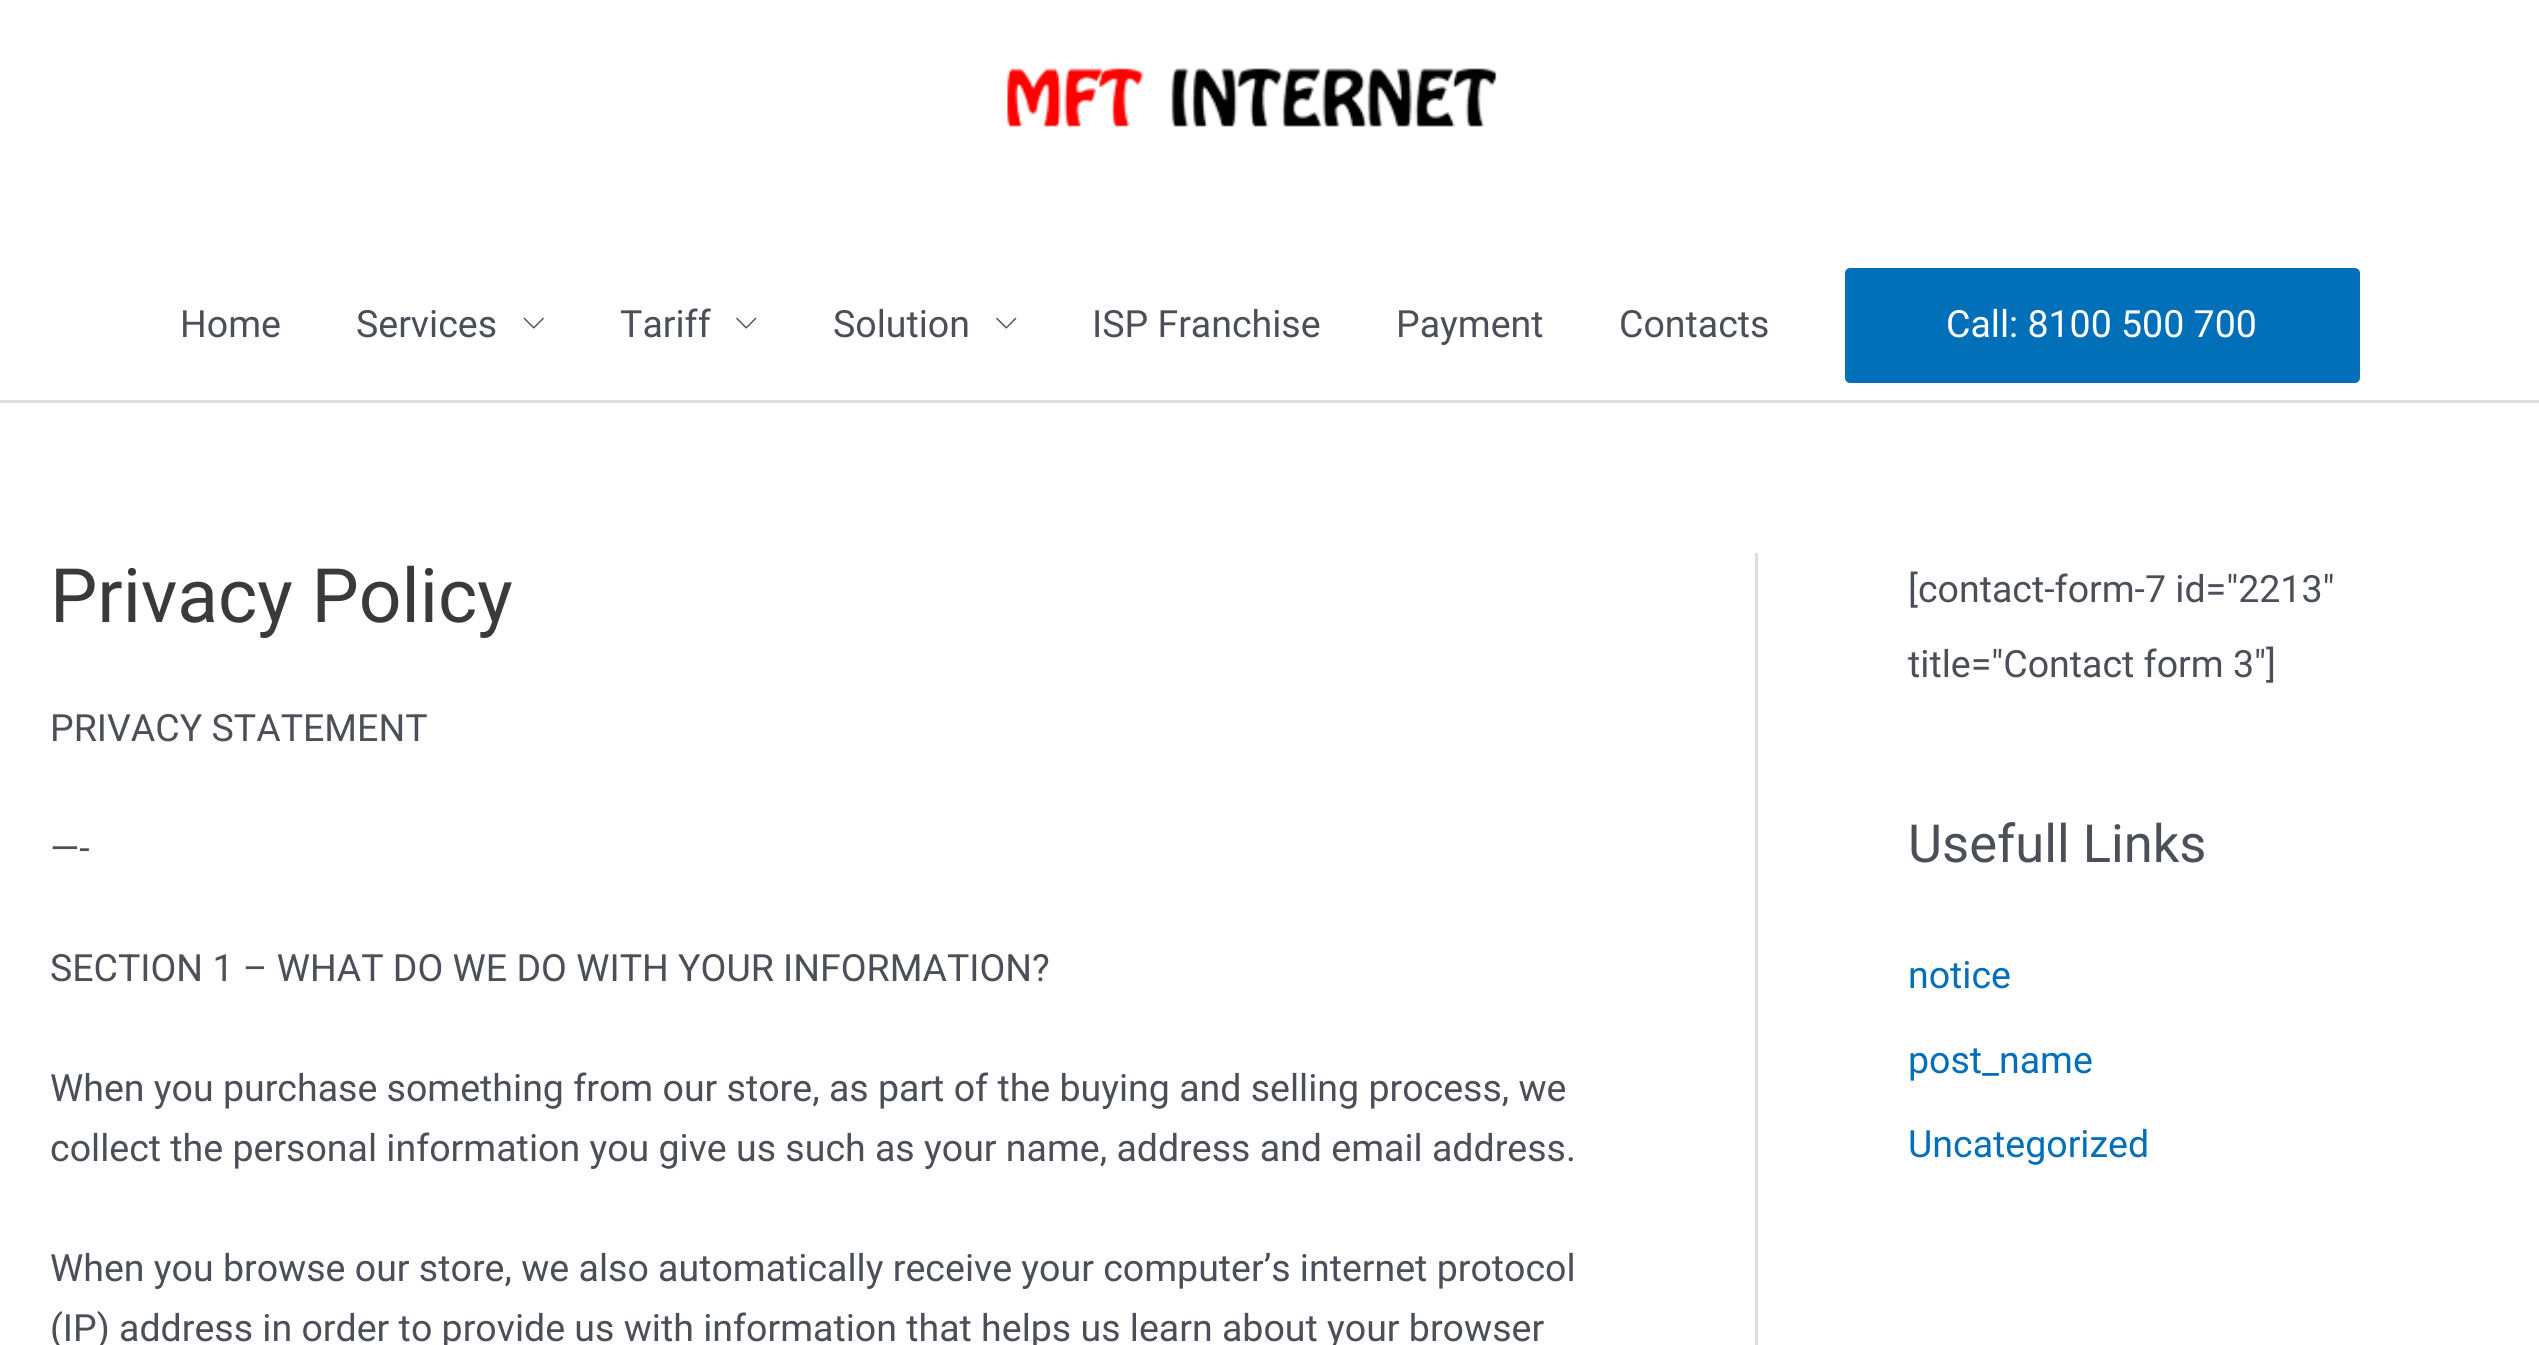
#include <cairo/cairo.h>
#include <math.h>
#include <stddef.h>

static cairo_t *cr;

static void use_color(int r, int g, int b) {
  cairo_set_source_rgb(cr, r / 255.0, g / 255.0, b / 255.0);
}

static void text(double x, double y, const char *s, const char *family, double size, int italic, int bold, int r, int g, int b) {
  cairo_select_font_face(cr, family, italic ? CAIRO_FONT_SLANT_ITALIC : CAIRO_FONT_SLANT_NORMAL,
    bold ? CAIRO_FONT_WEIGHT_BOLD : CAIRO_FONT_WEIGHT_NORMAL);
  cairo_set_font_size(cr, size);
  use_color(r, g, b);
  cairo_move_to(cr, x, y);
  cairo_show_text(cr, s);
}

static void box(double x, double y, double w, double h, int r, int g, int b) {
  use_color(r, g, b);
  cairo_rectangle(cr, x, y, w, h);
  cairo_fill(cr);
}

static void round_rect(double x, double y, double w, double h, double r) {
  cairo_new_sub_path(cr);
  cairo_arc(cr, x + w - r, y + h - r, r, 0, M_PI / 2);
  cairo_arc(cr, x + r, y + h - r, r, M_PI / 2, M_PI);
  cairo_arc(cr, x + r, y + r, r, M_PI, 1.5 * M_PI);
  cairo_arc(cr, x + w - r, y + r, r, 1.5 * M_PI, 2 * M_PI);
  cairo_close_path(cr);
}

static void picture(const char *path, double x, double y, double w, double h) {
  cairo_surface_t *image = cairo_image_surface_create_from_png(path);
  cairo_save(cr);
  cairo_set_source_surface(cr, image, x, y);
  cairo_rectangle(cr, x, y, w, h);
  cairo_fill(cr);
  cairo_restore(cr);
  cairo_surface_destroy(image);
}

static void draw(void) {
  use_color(255, 255, 255);
  cairo_paint(cr);
  box(0, 400, 2539, 3, 221, 221, 221);
  picture("img_01.png", 1007, 68, 490, 59);
  picture("img_02.png", 523, 317, 21, 12);
  picture("img_03.png", 736, 317, 21, 12);
  picture("img_03.png", 996, 317, 21, 12);
  use_color(1, 112, 185);
  round_rect(1846.5, 269.5, 512, 112, 3.5);
  cairo_fill_preserve(cr);
  cairo_set_line_width(cr, 3);
  cairo_stroke(cr);
  box(1755, 553, 3, 792, 221, 221, 221);
  text(180, 337, "Home", "Roboto", 37.5, 0, 0, 75, 79, 88);
  text(356, 337, "Services", "Roboto", 37.5, 0, 0, 75, 79, 88);
  text(620, 337, "Tariff", "Roboto", 37.5, 0, 0, 75, 79, 88);
  text(833, 337, "Solution", "Roboto", 37.5, 0, 0, 75, 79, 88);
  text(1092, 337, "ISP Franchise", "Roboto", 37.5, 0, 0, 75, 79, 88);
  text(1396, 337, "Payment", "Roboto", 37.5, 0, 0, 75, 79, 88);
  text(1619, 337, "Contacts", "Roboto", 37.5, 0, 0, 75, 79, 88);
  text(1946, 337, "Call: 8100 500 700", "Roboto", 37.5, 0, 0, 255, 255, 255);
  text(50, 622, "Privacy Policy", "Roboto", 75, 0, 0, 58, 58, 58);
  text(50, 741, "PRIVACY STATEMENT", "Roboto", 37.5, 0, 0, 75, 79, 88);
  text(50, 861, "—-", "Roboto", 37.5, 0, 0, 75, 79, 88);
  text(50, 981, "SECTION 1 – WHAT DO WE DO WITH YOUR INFORMATION?", "Roboto", 37.5, 0, 0, 75, 79, 88);
  text(50, 1101, "When you purchase something from our store, as part of the buying and selling process, we", "Roboto", 37.5, 0, 0, 75, 79, 88);
  text(50, 1161, "collect the personal information you give us such as your name, address and email address.", "Roboto", 37.5, 0, 0, 75, 79, 88);
  text(50, 1281, "When you browse our store, we also automatically receive your computer’s internet protocol", "Roboto", 37.5, 0, 0, 75, 79, 88);
  text(50, 1341, "(IP) address in order to provide us with information that helps us learn about your browser", "Roboto", 37.5, 0, 0, 75, 79, 88);
  text(1908, 602, "[contact-form-7 id=\"2213\"", "Roboto", 37.5, 0, 0, 75, 79, 88);
  text(1908, 677, "title=\"Contact form 3\"]", "Roboto", 37.5, 0, 0, 75, 79, 88);
  text(1908, 862, "Usefull Links", "Roboto", 52.5, 0, 0, 75, 79, 88);
  text(1908, 988, "notice", "Roboto", 37.5, 0, 0, 1, 112, 185);
  text(1908, 1073, "post_name", "Roboto", 37.5, 0, 0, 1, 112, 185);
  text(1908, 1157, "Uncategorized", "Roboto", 37.5, 0, 0, 1, 112, 185);
}

int main(void) {
  cairo_surface_t *surface = cairo_image_surface_create(CAIRO_FORMAT_RGB24, 2539, 1345);
  cr = cairo_create(surface);
  cairo_font_options_t *options = cairo_font_options_create();
  cairo_font_options_set_hint_metrics(options, CAIRO_HINT_METRICS_OFF);
  cairo_font_options_set_hint_style(options, CAIRO_HINT_STYLE_NONE);
  cairo_set_font_options(cr, options);
  cairo_set_miter_limit(cr, 4);
  draw();
  cairo_surface_write_to_png(surface, "out.png");
  cairo_font_options_destroy(options);
  cairo_destroy(cr);
  cairo_surface_destroy(surface);
  return 0;
}
